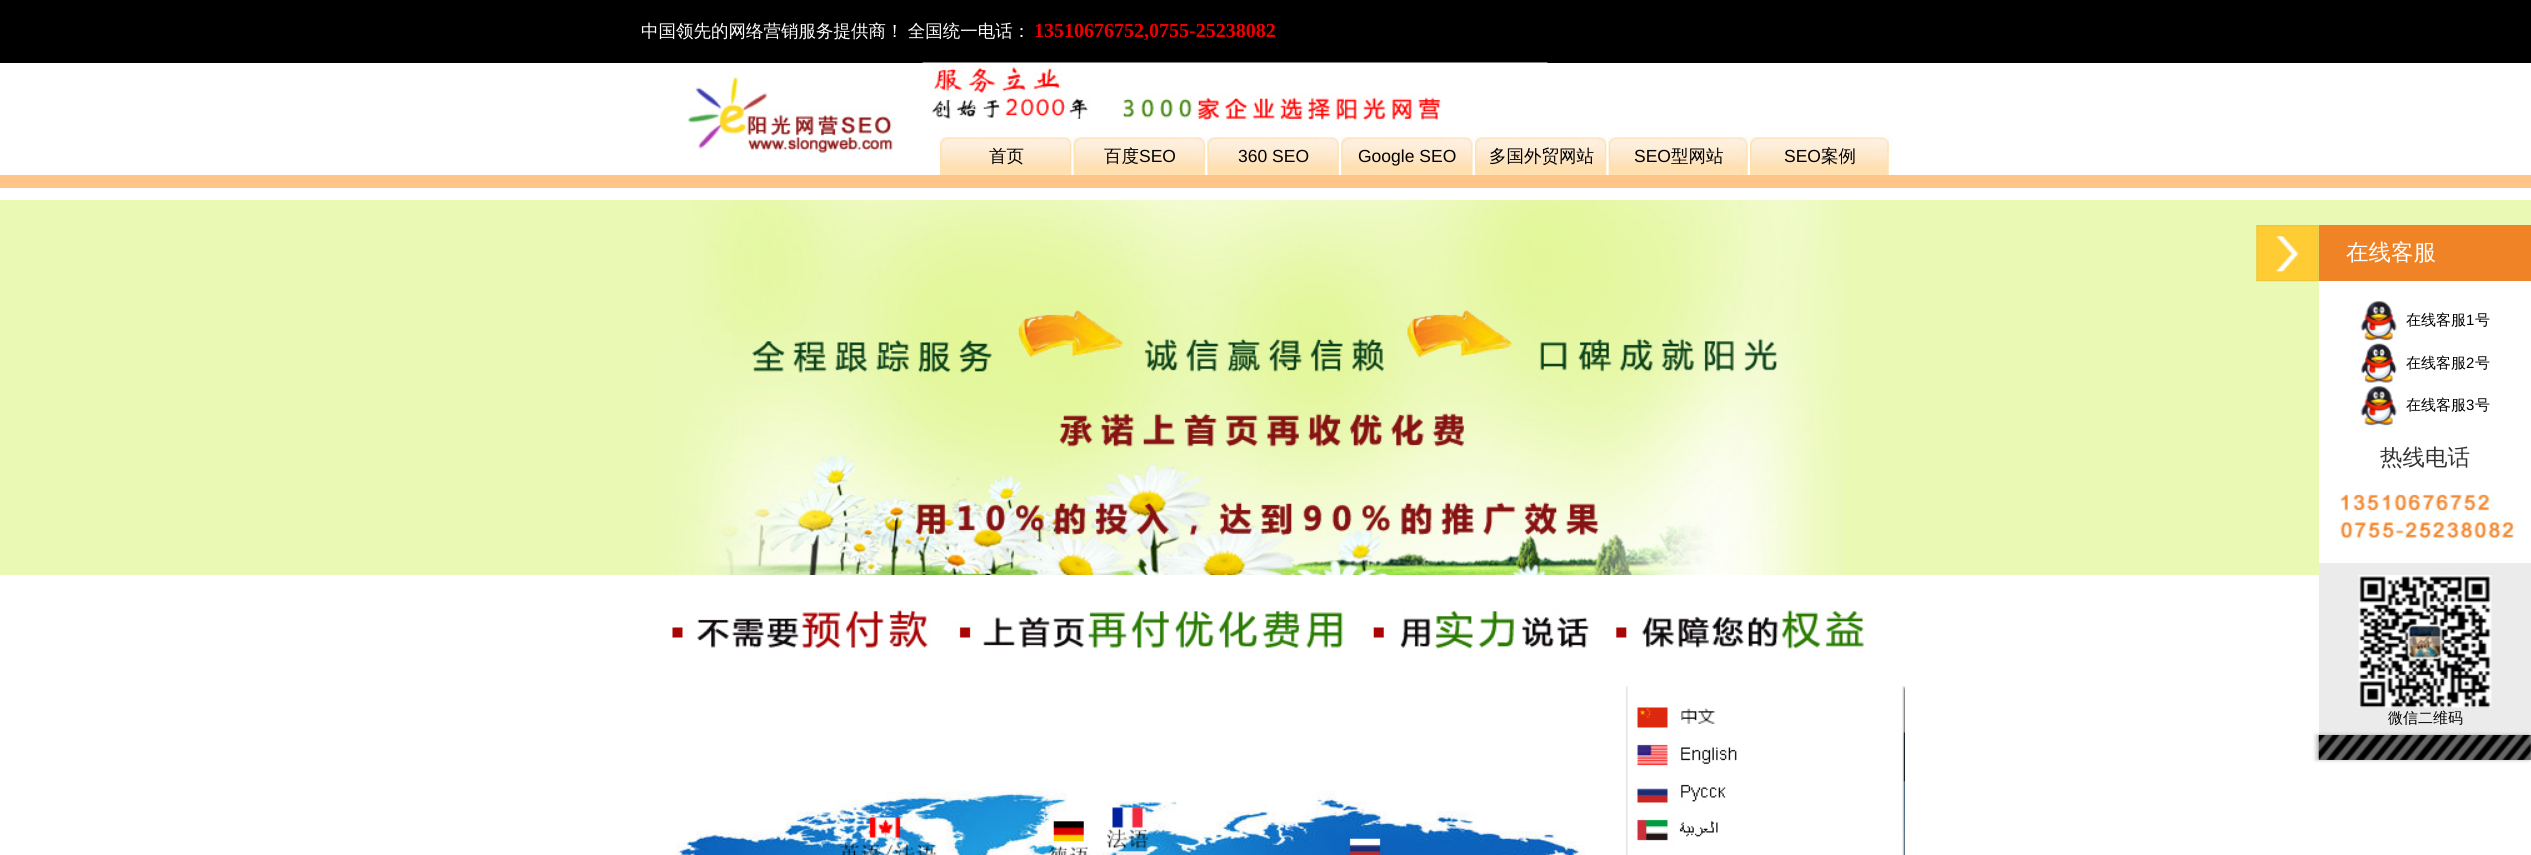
#include <cairo/cairo.h>
#include <math.h>
#include <stddef.h>

static cairo_t *cr;

static void use_color(int r, int g, int b) {
  cairo_set_source_rgb(cr, r / 255.0, g / 255.0, b / 255.0);
}

static void text(double x, double y, const char *s, const char *family, double size, int italic, int bold, int r, int g, int b) {
  cairo_select_font_face(cr, family, italic ? CAIRO_FONT_SLANT_ITALIC : CAIRO_FONT_SLANT_NORMAL,
    bold ? CAIRO_FONT_WEIGHT_BOLD : CAIRO_FONT_WEIGHT_NORMAL);
  cairo_set_font_size(cr, size);
  use_color(r, g, b);
  cairo_move_to(cr, x, y);
  cairo_show_text(cr, s);
}

static void spaced_text(double x, double y, const char *s, double letter, double word) {
  cairo_move_to(cr, x, y);
  while (*s) {
    char ch[5] = {0};
    int n = 0;
    do ch[n++] = *s++; while ((*s & 0xC0) == 0x80);
    cairo_show_text(cr, ch);
    cairo_rel_move_to(cr, letter + word * (*ch == ' '), 0);
  }
}

static void box(double x, double y, double w, double h, int r, int g, int b) {
  use_color(r, g, b);
  cairo_rectangle(cr, x, y, w, h);
  cairo_fill(cr);
}

static void round_rect(double x, double y, double w, double h, double r) {
  cairo_new_sub_path(cr);
  cairo_arc(cr, x + w - r, y + h - r, r, 0, M_PI / 2);
  cairo_arc(cr, x + r, y + h - r, r, M_PI / 2, M_PI);
  cairo_arc(cr, x + r, y + r, r, M_PI, 1.5 * M_PI);
  cairo_arc(cr, x + w - r, y + r, r, 1.5 * M_PI, 2 * M_PI);
  cairo_close_path(cr);
}

static void shadow(double x, double y, double w, double h, double r, double blur, double alpha) {
  cairo_push_group_with_content(cr, CAIRO_CONTENT_ALPHA);
  cairo_set_operator(cr, CAIRO_OPERATOR_SOURCE);
  for (int i = 15; i >= -15 && fmin(w, h) + blur * i / 3 > 0; i -= 2) {
    double e = blur * i / 6;
    cairo_set_source_rgba(cr, 0, 0, 0, alpha * erfc((i - 1) / 8.5) / 2);
    round_rect(x - e, y - e, w + 2 * e, h + 2 * e, fmax(0, fmin(r + e + blur * .6, fmin(w, h) / 2 + e)));
    cairo_fill(cr);
  }
  cairo_pattern_t *soft = cairo_pop_group(cr);
  cairo_mask(cr, soft);
  cairo_pattern_destroy(soft);
}

static void picture(const char *path, double x, double y, double w, double h) {
  cairo_surface_t *image = cairo_image_surface_create_from_png(path);
  cairo_save(cr);
  cairo_set_source_surface(cr, image, x, y);
  cairo_rectangle(cr, x, y, w, h);
  cairo_fill(cr);
  cairo_restore(cr);
  cairo_surface_destroy(image);
}

static void draw(void) {
  use_color(255, 255, 255);
  cairo_paint(cr);
  box(0, 0, 2531, 63, 0, 0, 0);
  picture("img_01.png", 687, 76, 206, 77);
  picture("img_02.png", 922, 62, 626, 59);
  picture("img_03.png", 940, 137, 134, 38);
  picture("img_04.png", 1073, 137, 135, 38);
  picture("img_05.png", 1207, 137, 135, 38);
  picture("img_06.png", 1341, 137, 134, 38);
  picture("img_07.png", 1475, 137, 134, 38);
  picture("img_08.png", 1608, 137, 142, 38);
  picture("img_09.png", 1750, 137, 142, 38);
  box(0, 175, 2531, 13, 255, 196, 136);
  box(0, 200, 2531, 375, 234, 249, 180);
  picture("img_10.png", 669, 200, 1174, 375);
  picture("img_11.png", 672, 610, 1192, 39);
  picture("img_12.png", 2256, 225, 63, 57);
  box(2319, 281, 212, 294, 255, 255, 255);
  box(2319, 225, 212, 56, 240, 131, 38);
  picture("img_13.png", 2360, 301, 37, 41);
  picture("img_14.png", 2361, 343, 36, 42);
  picture("img_13.png", 2360, 386, 37, 41);
  picture("img_15.png", 2340, 494, 175, 44);
  box(2319, 563, 212, 172, 235, 235, 235);
  picture("img_16.png", 2358, 575, 134, 133);
  use_color(0, 0, 0);
  shadow(2316, 735, 213, 25, 0, 2, 0.25);
  picture("img_17.png", 2318, 735, 213, 25);
  picture("img_18.png", 676, 791, 909, 64);
  picture("img_19.png", 1626, 686, 279, 169);
  cairo_select_font_face(cr, "WenQuanYi Zen Hei Medium", CAIRO_FONT_SLANT_NORMAL, CAIRO_FONT_WEIGHT_NORMAL);
  cairo_set_font_size(cr, 17.5);
  use_color(255, 255, 255);
  spaced_text(641, 37, "中国领先的网络营销服务提供商！ 全国统一电话：", 0, -1);
  text(1034, 37, "13510676752,0755-25238082", "Liberation Serif", 20, 0, 1, 236, 0, 0);
  text(989, 162, "首页", "WenQuanYi Zen Hei Medium", 17.5, 0, 0, 0, 0, 0);
  text(1104, 162, "百度", "WenQuanYi Zen Hei Medium", 17.5, 0, 0, 0, 0, 0);
  text(1139, 162, "SEO", "Liberation Sans", 17.5, 0, 0, 0, 0, 0);
  text(1238, 162, "360 SEO", "Liberation Sans", 17.5, 0, 0, 0, 0, 0);
  text(1358, 162, "Google SEO", "Liberation Sans", 17.5, 0, 0, 0, 0, 0);
  text(1489, 162, "多国外贸网站", "WenQuanYi Zen Hei Medium", 17.5, 0, 0, 0, 0, 0);
  text(1634, 162, "SEO", "Liberation Sans", 17.5, 0, 0, 0, 0, 0);
  text(1671, 162, "型网站", "WenQuanYi Zen Hei Medium", 17.5, 0, 0, 0, 0, 0);
  text(1784, 162, "SEO", "Liberation Sans", 17.5, 0, 0, 0, 0, 0);
  text(1821, 162, "案例", "WenQuanYi Zen Hei Medium", 17.5, 0, 0, 0, 0, 0);
  text(2346, 260, "在线客服", "WenQuanYi Zen Hei Medium", 22.5, 0, 0, 255, 255, 255);
  text(2406, 325, "在线客服", "WenQuanYi Zen Hei Medium", 15, 0, 0, 0, 0, 0);
  text(2466, 325, "1", "Liberation Sans", 15, 0, 0, 0, 0, 0);
  text(2475, 325, "号", "WenQuanYi Zen Hei Medium", 15, 0, 0, 0, 0, 0);
  text(2406, 368, "在线客服", "WenQuanYi Zen Hei Medium", 15, 0, 0, 0, 0, 0);
  text(2466, 368, "2", "Liberation Sans", 15, 0, 0, 0, 0, 0);
  text(2475, 368, "号", "WenQuanYi Zen Hei Medium", 15, 0, 0, 0, 0, 0);
  text(2406, 410, "在线客服", "WenQuanYi Zen Hei Medium", 15, 0, 0, 0, 0, 0);
  text(2466, 410, "3", "Liberation Sans", 15, 0, 0, 0, 0, 0);
  text(2475, 410, "号", "WenQuanYi Zen Hei Medium", 15, 0, 0, 0, 0, 0);
  text(2380, 465, "热线电话", "WenQuanYi Zen Hei Medium", 22.5, 0, 0, 51, 51, 51);
  text(2388, 723, "微信二维码", "WenQuanYi Zen Hei Medium", 15, 0, 0, 0, 0, 0);
}

int main(void) {
  cairo_surface_t *surface = cairo_image_surface_create(CAIRO_FORMAT_RGB24, 2531, 855);
  cr = cairo_create(surface);
  cairo_font_options_t *options = cairo_font_options_create();
  cairo_font_options_set_hint_metrics(options, CAIRO_HINT_METRICS_OFF);
  cairo_font_options_set_hint_style(options, CAIRO_HINT_STYLE_NONE);
  cairo_set_font_options(cr, options);
  cairo_set_miter_limit(cr, 4);
  draw();
  cairo_surface_write_to_png(surface, "out.png");
  cairo_font_options_destroy(options);
  cairo_destroy(cr);
  cairo_surface_destroy(surface);
  return 0;
}
